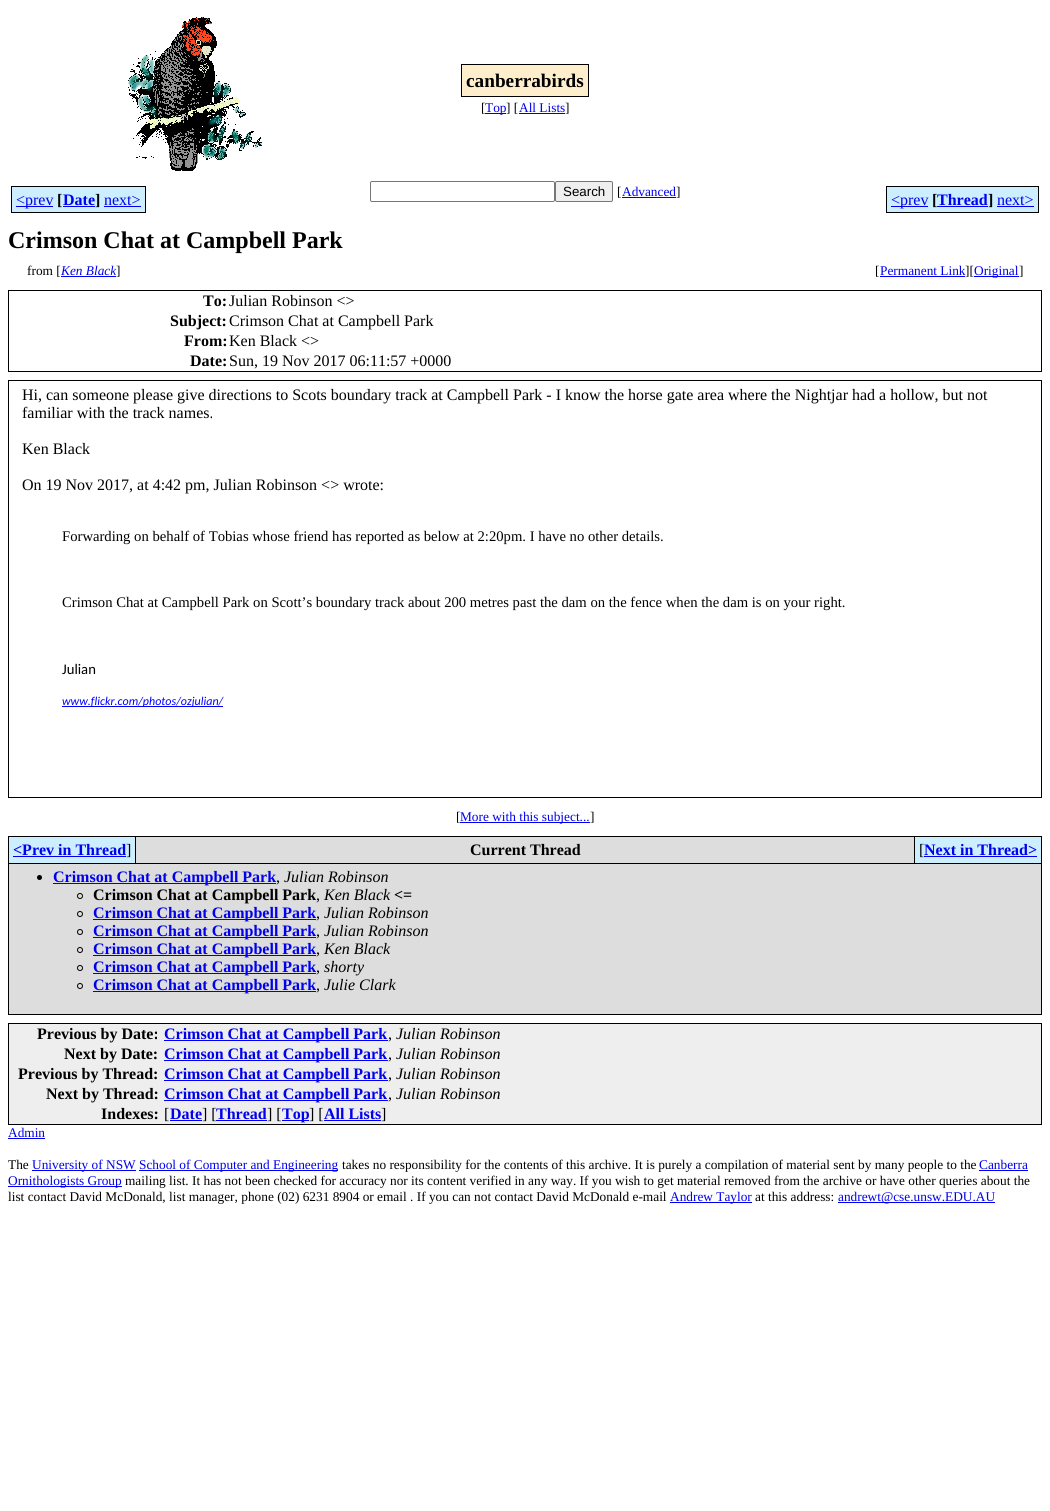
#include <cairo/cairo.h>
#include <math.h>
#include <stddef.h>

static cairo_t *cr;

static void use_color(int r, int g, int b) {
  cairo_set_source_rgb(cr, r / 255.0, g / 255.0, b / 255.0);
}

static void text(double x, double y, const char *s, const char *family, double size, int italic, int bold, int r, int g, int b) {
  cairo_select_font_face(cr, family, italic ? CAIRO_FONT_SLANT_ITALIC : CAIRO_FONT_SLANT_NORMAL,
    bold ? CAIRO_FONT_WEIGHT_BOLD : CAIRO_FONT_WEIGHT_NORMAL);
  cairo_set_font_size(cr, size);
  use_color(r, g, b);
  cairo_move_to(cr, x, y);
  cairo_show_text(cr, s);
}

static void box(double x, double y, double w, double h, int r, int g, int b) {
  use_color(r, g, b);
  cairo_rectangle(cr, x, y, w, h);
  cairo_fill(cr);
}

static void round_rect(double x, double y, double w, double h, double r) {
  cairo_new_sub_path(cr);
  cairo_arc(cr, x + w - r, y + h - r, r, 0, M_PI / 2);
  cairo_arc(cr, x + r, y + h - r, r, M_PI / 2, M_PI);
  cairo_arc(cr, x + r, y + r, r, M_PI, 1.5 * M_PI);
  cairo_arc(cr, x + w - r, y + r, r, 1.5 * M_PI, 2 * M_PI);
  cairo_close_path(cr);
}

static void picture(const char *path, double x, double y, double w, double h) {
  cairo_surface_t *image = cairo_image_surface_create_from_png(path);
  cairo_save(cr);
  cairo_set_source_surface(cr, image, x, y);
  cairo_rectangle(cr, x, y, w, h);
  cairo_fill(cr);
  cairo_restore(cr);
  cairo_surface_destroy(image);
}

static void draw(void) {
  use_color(255, 255, 255);
  cairo_paint(cr);
  picture("img_01.png", 128, 17, 134, 154);
  use_color(255, 238, 204);
  cairo_rectangle(cr, 461.5, 64.5, 127, 32);
  cairo_fill_preserve(cr);
  use_color(0, 0, 0);
  cairo_set_line_width(cr, 1);
  cairo_stroke(cr);
  box(485, 113, 21, 1, 0, 0, 238);
  box(519, 113, 46, 1, 0, 0, 238);
  box(12, 187, 41, 25, 204, 238, 255);
  box(11, 186, 42, 1, 0, 0, 0);
  box(11, 212, 42, 1, 0, 0, 0);
  box(11, 186, 1, 27, 0, 0, 0);
  box(53, 186, 10, 27, 204, 238, 255);
  box(53, 212, 42, 1, 0, 0, 0);
  box(16, 206, 37, 1, 0, 0, 238);
  box(63, 187, 32, 25, 204, 238, 255);
  box(63, 206, 32, 1, 0, 0, 238);
  box(53, 186, 42, 1, 0, 0, 0);
  box(95, 186, 9, 27, 204, 238, 255);
  box(95, 186, 51, 1, 0, 0, 0);
  box(95, 212, 9, 1, 0, 0, 0);
  box(104, 187, 41, 25, 204, 238, 255);
  box(145, 186, 1, 27, 0, 0, 0);
  box(104, 212, 42, 1, 0, 0, 0);
  box(104, 206, 37, 1, 0, 0, 238);
  round_rect(370.5, 181.5, 184, 20, 1.5);
  use_color(118, 118, 118);
  cairo_stroke(cr);
  use_color(239, 239, 239);
  round_rect(555.5, 181.5, 57, 20, 1.5);
  cairo_fill_preserve(cr);
  use_color(118, 118, 118);
  cairo_stroke(cr);
  box(622, 197, 54, 1, 0, 0, 238);
  box(887, 187, 41, 25, 204, 238, 255);
  box(886, 186, 42, 1, 0, 0, 0);
  box(886, 212, 42, 1, 0, 0, 0);
  box(886, 186, 1, 27, 0, 0, 0);
  box(928, 186, 9, 27, 204, 238, 255);
  box(928, 212, 60, 1, 0, 0, 0);
  box(891, 206, 37, 1, 0, 0, 238);
  box(937, 187, 51, 25, 204, 238, 255);
  box(937, 206, 51, 1, 0, 0, 238);
  box(928, 186, 60, 1, 0, 0, 0);
  box(988, 186, 9, 27, 204, 238, 255);
  box(988, 186, 51, 1, 0, 0, 0);
  box(988, 212, 9, 1, 0, 0, 0);
  box(997, 187, 41, 25, 204, 238, 255);
  box(1038, 186, 1, 27, 0, 0, 0);
  box(997, 212, 42, 1, 0, 0, 0);
  box(997, 206, 37, 1, 0, 0, 238);
  box(61, 276, 55, 1, 0, 0, 238);
  box(880, 276, 85, 1, 0, 0, 238);
  box(974, 276, 45, 1, 0, 0, 238);
  cairo_rectangle(cr, 8.5, 290.5, 1033, 81);
  use_color(0, 0, 0);
  cairo_stroke(cr);
  cairo_rectangle(cr, 8.5, 380.5, 1033, 417);
  cairo_stroke(cr);
  box(62, 706, 161, 1, 0, 0, 238);
  box(460, 822, 130, 1, 0, 0, 238);
  box(8, 836, 1034, 179, 0, 0, 0);
  box(9, 837, 126, 26, 204, 238, 255);
  box(13, 856, 113, 1, 0, 0, 238);
  box(136, 837, 778, 26, 221, 221, 221);
  box(915, 837, 126, 26, 204, 238, 255);
  box(924, 856, 113, 1, 0, 0, 238);
  box(9, 864, 1032, 150, 221, 221, 221);
  use_color(0, 0, 0);
  cairo_arc(cr, 39.5, 877.5, 2.5, 0, 2 * M_PI);
  cairo_fill(cr);
  box(53, 883, 223, 1, 0, 0, 238);
  cairo_arc(cr, 80, 896, 2.5, 0, 2 * M_PI);
  use_color(0, 0, 0);
  cairo_stroke(cr);
  cairo_arc(cr, 80, 914, 2.5, 0, 2 * M_PI);
  cairo_stroke(cr);
  box(93, 919, 223, 1, 0, 0, 238);
  cairo_arc(cr, 80, 932, 2.5, 0, 2 * M_PI);
  use_color(0, 0, 0);
  cairo_stroke(cr);
  box(93, 937, 223, 1, 0, 0, 238);
  cairo_arc(cr, 80, 950, 2.5, 0, 2 * M_PI);
  use_color(0, 0, 0);
  cairo_stroke(cr);
  box(93, 955, 223, 1, 0, 0, 238);
  cairo_arc(cr, 80, 968, 2.5, 0, 2 * M_PI);
  use_color(0, 0, 0);
  cairo_stroke(cr);
  box(93, 973, 223, 1, 0, 0, 238);
  cairo_arc(cr, 80, 986, 2.5, 0, 2 * M_PI);
  use_color(0, 0, 0);
  cairo_stroke(cr);
  box(93, 991, 223, 1, 0, 0, 238);
  use_color(238, 238, 238);
  cairo_rectangle(cr, 8.5, 1023.5, 1033, 101);
  cairo_fill_preserve(cr);
  use_color(0, 0, 0);
  cairo_stroke(cr);
  box(164, 1040, 224, 1, 0, 0, 238);
  box(164, 1060, 224, 1, 0, 0, 238);
  box(164, 1080, 224, 1, 0, 0, 238);
  box(164, 1100, 224, 1, 0, 0, 238);
  box(170, 1120, 32, 1, 0, 0, 238);
  box(216, 1120, 51, 1, 0, 0, 238);
  box(282, 1120, 27, 1, 0, 0, 238);
  box(324, 1120, 57, 1, 0, 0, 238);
  box(8, 1138, 37, 1, 0, 0, 238);
  box(32, 1170, 104, 1, 0, 0, 238);
  box(139, 1170, 199, 1, 0, 0, 238);
  box(979, 1170, 49, 1, 0, 0, 238);
  box(8, 1186, 114, 1, 0, 0, 238);
  box(670, 1202, 82, 1, 0, 0, 238);
  box(838, 1202, 157, 1, 0, 0, 238);
  text(466, 87, "canberrabirds", "Liberation Serif", 19.25, 0, 1, 0, 0, 0);
  text(481, 112, "[", "Liberation Serif", 13.33, 0, 0, 0, 0, 0);
  text(485, 112, "Top", "Liberation Serif", 13.33, 0, 0, 0, 0, 238);
  text(506, 112, "] [", "Liberation Serif", 13.33, 0, 0, 0, 0, 0);
  text(519, 112, "All Lists", "Liberation Serif", 13.33, 0, 0, 0, 0, 238);
  text(565, 112, "]", "Liberation Serif", 13.33, 0, 0, 0, 0, 0);
  text(16, 205, "<prev", "Liberation Serif", 16, 0, 0, 0, 0, 238);
  text(57, 205, "[", "Liberation Serif", 16, 0, 1, 0, 0, 0);
  text(63, 205, "Date", "Liberation Serif", 16, 0, 1, 0, 0, 238);
  text(95, 205, "]", "Liberation Serif", 16, 0, 1, 0, 0, 0);
  text(104, 205, "next>", "Liberation Serif", 16, 0, 0, 0, 0, 238);
  text(563, 196, "Search", "Liberation Sans", 13.33, 0, 0, 0, 0, 0);
  text(617, 196, "[", "Liberation Serif", 13.33, 0, 0, 0, 0, 0);
  text(622, 196, "Advanced", "Liberation Serif", 13.33, 0, 0, 0, 0, 238);
  text(676, 196, "]", "Liberation Serif", 13.33, 0, 0, 0, 0, 0);
  text(891, 205, "<prev", "Liberation Serif", 16, 0, 0, 0, 0, 238);
  text(932, 205, "[", "Liberation Serif", 16, 0, 1, 0, 0, 0);
  text(937, 205, "Thread", "Liberation Serif", 16, 0, 1, 0, 0, 238);
  text(988, 205, "]", "Liberation Serif", 16, 0, 1, 0, 0, 0);
  text(997, 205, "next>", "Liberation Serif", 16, 0, 0, 0, 0, 238);
  text(8, 248, "Crimson Chat at Campbell Park", "Liberation Serif", 24, 0, 1, 0, 0, 0);
  text(27, 275, "from [", "Liberation Serif", 13.33, 0, 0, 0, 0, 0);
  text(61, 275, "Ken Black", "Liberation Serif", 13.33, 1, 0, 0, 0, 238);
  text(116, 275, "]", "Liberation Serif", 13.33, 0, 0, 0, 0, 0);
  text(875, 275, "[", "Liberation Serif", 13.33, 0, 0, 0, 0, 0);
  text(880, 275, "Permanent Link", "Liberation Serif", 13.33, 0, 0, 0, 0, 238);
  text(965, 275, "][", "Liberation Serif", 13.33, 0, 0, 0, 0, 0);
  text(974, 275, "Original", "Liberation Serif", 13.33, 0, 0, 0, 0, 238);
  text(1019, 275, "]", "Liberation Serif", 13.33, 0, 0, 0, 0, 0);
  text(203, 306, "To:", "Liberation Serif", 16, 0, 1, 0, 0, 0);
  text(229, 306, "Julian Robinson <>", "Liberation Serif", 16, 0, 0, 0, 0, 0);
  text(170, 326, "Subject:", "Liberation Serif", 16, 0, 1, 0, 0, 0);
  text(229, 326, "Crimson Chat at Campbell Park", "Liberation Serif", 16, 0, 0, 0, 0, 0);
  text(184, 346, "From:", "Liberation Serif", 16, 0, 1, 0, 0, 0);
  text(229, 346, "Ken Black <>", "Liberation Serif", 16, 0, 0, 0, 0, 0);
  text(190, 366, "Date:", "Liberation Serif", 16, 0, 1, 0, 0, 0);
  text(229, 366, "Sun, 19 Nov 2017 06:11:57 +0000", "Liberation Serif", 16, 0, 0, 0, 0, 0);
  text(22, 400, "Hi, can someone please give directions to Scots boundary track at Campbell Park - I know the horse gate area where the Nightjar had a hollow, but not", "Liberation Serif", 16, 0, 0, 0, 0, 0);
  text(22, 418, "familiar with the track names.", "Liberation Serif", 16, 0, 0, 0, 0, 0);
  text(22, 454, "Ken Black", "Liberation Serif", 16, 0, 0, 0, 0, 0);
  text(22, 490, "On 19 Nov 2017, at 4:42 pm, Julian Robinson <> wrote:", "Liberation Serif", 16, 0, 0, 0, 0, 0);
  text(62, 541, "Forwarding on behalf of Tobias whose friend has reported as below at 2:20pm. I have no other details.", "Liberation Serif", 14.67, 0, 0, 0, 0, 0);
  text(62, 607, "Crimson Chat at Campbell Park on Scott’s boundary track about 200 metres past the dam on the fence when the dam is on your right.", "Liberation Serif", 14.67, 0, 0, 0, 0, 0);
  text(62, 674, "Julian", "Carlito", 14.67, 0, 0, 0, 0, 0);
  text(62, 705, "www.flickr.com/photos/ozjulian/", "Carlito", 12, 1, 0, 0, 0, 255);
  text(456, 821, "[", "Liberation Serif", 13.33, 0, 0, 0, 0, 0);
  text(460, 821, "More with this subject...", "Liberation Serif", 13.33, 0, 0, 0, 0, 238);
  text(590, 821, "]", "Liberation Serif", 13.33, 0, 0, 0, 0, 0);
  text(13, 855, "<Prev in Thread", "Liberation Serif", 16, 0, 1, 0, 0, 238);
  text(126, 855, "]", "Liberation Serif", 16, 0, 0, 0, 0, 0);
  text(470, 855, "Current Thread", "Liberation Serif", 16, 0, 1, 0, 0, 0);
  text(919, 855, "[", "Liberation Serif", 16, 0, 0, 0, 0, 0);
  text(924, 855, "Next in Thread>", "Liberation Serif", 16, 0, 1, 0, 0, 238);
  text(53, 882, "Crimson Chat at Campbell Park", "Liberation Serif", 16, 0, 1, 0, 0, 238);
  text(284, 882, "Julian Robinson", "Liberation Serif", 16, 1, 0, 0, 0, 0);
  text(276, 882, ",", "Liberation Serif", 16, 0, 0, 0, 0, 0);
  text(93, 900, "Crimson Chat at Campbell Park", "Liberation Serif", 16, 0, 1, 0, 0, 0);
  text(324, 900, "Ken Black", "Liberation Serif", 16, 1, 0, 0, 0, 0);
  text(394, 900, "<=", "Liberation Serif", 16, 0, 1, 0, 0, 0);
  text(316, 900, ",", "Liberation Serif", 16, 0, 0, 0, 0, 0);
  text(93, 918, "Crimson Chat at Campbell Park", "Liberation Serif", 16, 0, 1, 0, 0, 238);
  text(324, 918, "Julian Robinson", "Liberation Serif", 16, 1, 0, 0, 0, 0);
  text(316, 918, ",", "Liberation Serif", 16, 0, 0, 0, 0, 0);
  text(93, 936, "Crimson Chat at Campbell Park", "Liberation Serif", 16, 0, 1, 0, 0, 238);
  text(324, 936, "Julian Robinson", "Liberation Serif", 16, 1, 0, 0, 0, 0);
  text(316, 936, ",", "Liberation Serif", 16, 0, 0, 0, 0, 0);
  text(93, 954, "Crimson Chat at Campbell Park", "Liberation Serif", 16, 0, 1, 0, 0, 238);
  text(324, 954, "Ken Black", "Liberation Serif", 16, 1, 0, 0, 0, 0);
  text(316, 954, ",", "Liberation Serif", 16, 0, 0, 0, 0, 0);
  text(93, 972, "Crimson Chat at Campbell Park", "Liberation Serif", 16, 0, 1, 0, 0, 238);
  text(324, 972, "shorty", "Liberation Serif", 16, 1, 0, 0, 0, 0);
  text(316, 972, ",", "Liberation Serif", 16, 0, 0, 0, 0, 0);
  text(93, 990, "Crimson Chat at Campbell Park", "Liberation Serif", 16, 0, 1, 0, 0, 238);
  text(324, 990, "Julie Clark", "Liberation Serif", 16, 1, 0, 0, 0, 0);
  text(316, 990, ",", "Liberation Serif", 16, 0, 0, 0, 0, 0);
  text(37, 1039, "Previous by Date:", "Liberation Serif", 16, 0, 1, 0, 0, 0);
  text(164, 1039, "Crimson Chat at Campbell Park", "Liberation Serif", 16, 0, 1, 0, 0, 238);
  text(388, 1039, ",", "Liberation Serif", 16, 0, 0, 0, 0, 0);
  text(396, 1039, "Julian Robinson", "Liberation Serif", 16, 1, 0, 0, 0, 0);
  text(64, 1059, "Next by Date:", "Liberation Serif", 16, 0, 1, 0, 0, 0);
  text(164, 1059, "Crimson Chat at Campbell Park", "Liberation Serif", 16, 0, 1, 0, 0, 238);
  text(388, 1059, ",", "Liberation Serif", 16, 0, 0, 0, 0, 0);
  text(396, 1059, "Julian Robinson", "Liberation Serif", 16, 1, 0, 0, 0, 0);
  text(18, 1079, "Previous by Thread:", "Liberation Serif", 16, 0, 1, 0, 0, 0);
  text(164, 1079, "Crimson Chat at Campbell Park", "Liberation Serif", 16, 0, 1, 0, 0, 238);
  text(388, 1079, ",", "Liberation Serif", 16, 0, 0, 0, 0, 0);
  text(396, 1079, "Julian Robinson", "Liberation Serif", 16, 1, 0, 0, 0, 0);
  text(46, 1099, "Next by Thread:", "Liberation Serif", 16, 0, 1, 0, 0, 0);
  text(164, 1099, "Crimson Chat at Campbell Park", "Liberation Serif", 16, 0, 1, 0, 0, 238);
  text(388, 1099, ",", "Liberation Serif", 16, 0, 0, 0, 0, 0);
  text(396, 1099, "Julian Robinson", "Liberation Serif", 16, 1, 0, 0, 0, 0);
  text(101, 1119, "Indexes:", "Liberation Serif", 16, 0, 1, 0, 0, 0);
  text(164, 1119, "[", "Liberation Serif", 16, 0, 0, 0, 0, 0);
  text(170, 1119, "Date", "Liberation Serif", 16, 0, 1, 0, 0, 238);
  text(202, 1119, "] [", "Liberation Serif", 16, 0, 0, 0, 0, 0);
  text(216, 1119, "Thread", "Liberation Serif", 16, 0, 1, 0, 0, 238);
  text(267, 1119, "] [", "Liberation Serif", 16, 0, 0, 0, 0, 0);
  text(282, 1119, "Top", "Liberation Serif", 16, 0, 1, 0, 0, 238);
  text(309, 1119, "] [", "Liberation Serif", 16, 0, 0, 0, 0, 0);
  text(324, 1119, "All Lists", "Liberation Serif", 16, 0, 1, 0, 0, 238);
  text(381, 1119, "]", "Liberation Serif", 16, 0, 0, 0, 0, 0);
  text(8, 1137, "Admin", "Liberation Serif", 13.33, 0, 0, 0, 0, 238);
  text(8, 1169, "The", "Liberation Serif", 13.33, 0, 0, 0, 0, 0);
  text(32, 1169, "University of NSW", "Liberation Serif", 13.33, 0, 0, 0, 0, 238);
  text(139, 1169, "School of Computer and Engineering", "Liberation Serif", 13.33, 0, 0, 0, 0, 238);
  text(342, 1169, "takes no responsibility for the contents of this archive. It is purely a compilation of material sent by many people to the", "Liberation Serif", 13.33, 0, 0, 0, 0, 0);
  text(979, 1169, "Canberra", "Liberation Serif", 13.33, 0, 0, 0, 0, 238);
  text(8, 1185, "Ornithologists Group", "Liberation Serif", 13.33, 0, 0, 0, 0, 238);
  text(125, 1185, "mailing list. It has not been checked for accuracy nor its content verified in any way. If you wish to get material removed from the archive or have other queries about the", "Liberation Serif", 13.33, 0, 0, 0, 0, 0);
  text(8, 1201, "list contact David McDonald, list manager, phone (02) 6231 8904 or email . If you can not contact David McDonald e-mail", "Liberation Serif", 13.33, 0, 0, 0, 0, 0);
  text(670, 1201, "Andrew Taylor", "Liberation Serif", 13.33, 0, 0, 0, 0, 238);
  text(755, 1201, "at this address:", "Liberation Serif", 13.33, 0, 0, 0, 0, 0);
  text(838, 1201, "andrewt@cse.unsw.EDU.AU", "Liberation Serif", 13.33, 0, 0, 0, 0, 238);
}

int main(void) {
  cairo_surface_t *surface = cairo_image_surface_create(CAIRO_FORMAT_RGB24, 1050, 1511);
  cr = cairo_create(surface);
  cairo_font_options_t *options = cairo_font_options_create();
  cairo_font_options_set_hint_metrics(options, CAIRO_HINT_METRICS_OFF);
  cairo_font_options_set_hint_style(options, CAIRO_HINT_STYLE_NONE);
  cairo_set_font_options(cr, options);
  cairo_set_miter_limit(cr, 4);
  draw();
  cairo_surface_write_to_png(surface, "out.png");
  cairo_font_options_destroy(options);
  cairo_destroy(cr);
  cairo_surface_destroy(surface);
  return 0;
}
